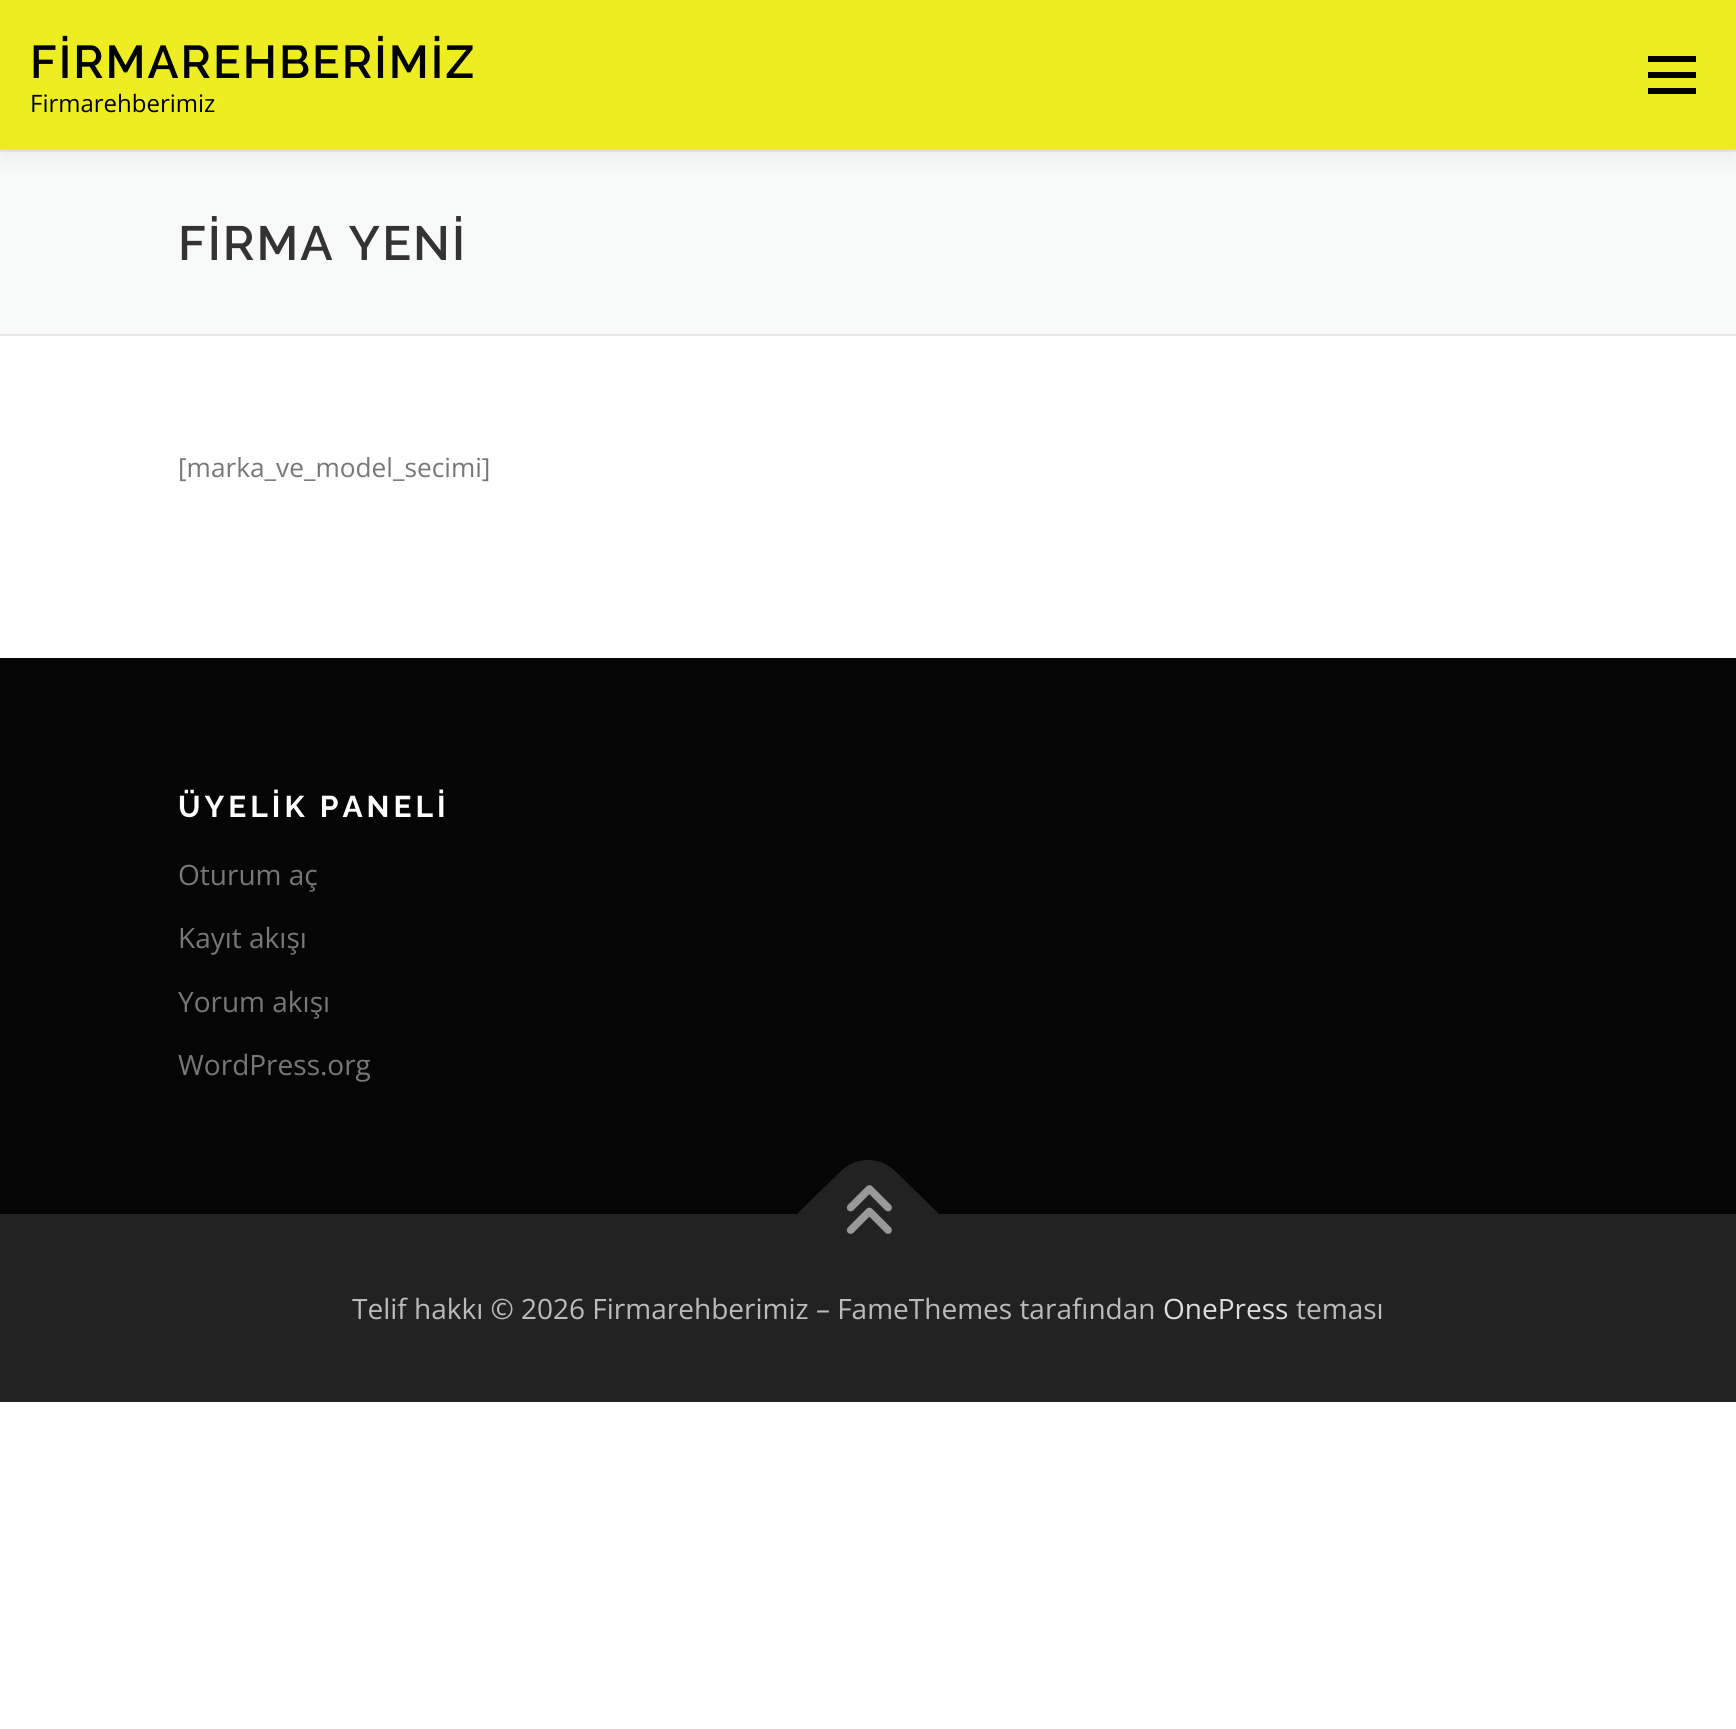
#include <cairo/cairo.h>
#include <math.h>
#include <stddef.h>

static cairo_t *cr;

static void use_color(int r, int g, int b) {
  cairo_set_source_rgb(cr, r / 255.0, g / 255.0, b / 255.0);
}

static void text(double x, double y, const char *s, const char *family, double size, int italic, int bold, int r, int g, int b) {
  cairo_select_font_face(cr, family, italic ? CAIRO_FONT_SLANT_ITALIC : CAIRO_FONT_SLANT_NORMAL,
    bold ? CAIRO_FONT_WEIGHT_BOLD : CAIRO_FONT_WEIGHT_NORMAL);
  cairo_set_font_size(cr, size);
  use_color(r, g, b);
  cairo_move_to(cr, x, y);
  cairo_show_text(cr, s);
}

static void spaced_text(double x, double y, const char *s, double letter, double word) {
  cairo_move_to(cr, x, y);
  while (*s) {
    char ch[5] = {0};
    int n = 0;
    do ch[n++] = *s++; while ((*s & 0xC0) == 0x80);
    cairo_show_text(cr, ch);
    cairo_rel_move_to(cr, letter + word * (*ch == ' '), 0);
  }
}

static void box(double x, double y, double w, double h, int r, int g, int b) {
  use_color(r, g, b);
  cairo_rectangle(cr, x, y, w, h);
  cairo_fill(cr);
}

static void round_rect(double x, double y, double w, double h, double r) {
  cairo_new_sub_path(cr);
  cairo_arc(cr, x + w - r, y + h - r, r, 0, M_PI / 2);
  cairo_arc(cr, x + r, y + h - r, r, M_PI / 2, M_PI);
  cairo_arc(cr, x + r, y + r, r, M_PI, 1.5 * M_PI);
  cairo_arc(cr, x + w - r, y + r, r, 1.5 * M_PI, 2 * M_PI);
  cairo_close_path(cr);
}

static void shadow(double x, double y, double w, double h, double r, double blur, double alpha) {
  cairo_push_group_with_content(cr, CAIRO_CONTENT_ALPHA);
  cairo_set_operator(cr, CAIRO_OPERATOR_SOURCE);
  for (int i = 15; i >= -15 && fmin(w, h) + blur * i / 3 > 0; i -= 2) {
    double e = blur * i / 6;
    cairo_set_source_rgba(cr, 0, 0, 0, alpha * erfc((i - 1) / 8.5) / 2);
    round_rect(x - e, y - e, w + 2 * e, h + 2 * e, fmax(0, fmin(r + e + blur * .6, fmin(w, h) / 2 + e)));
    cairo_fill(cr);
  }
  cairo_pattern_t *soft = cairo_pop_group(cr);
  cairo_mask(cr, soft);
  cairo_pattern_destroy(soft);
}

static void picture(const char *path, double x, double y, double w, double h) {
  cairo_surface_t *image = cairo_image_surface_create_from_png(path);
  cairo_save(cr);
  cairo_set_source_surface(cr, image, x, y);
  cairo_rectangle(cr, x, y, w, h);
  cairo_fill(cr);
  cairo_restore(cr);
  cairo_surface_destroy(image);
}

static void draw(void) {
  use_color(255, 255, 255);
  cairo_paint(cr);
  box(0, 152, 1736, 182, 248, 249, 249);
  box(0, 150, 1736, 2, 233, 233, 233);
  use_color(50, 50, 50);
  shadow(0, 10, 1736, 150, 0, 10, 0.06);
  box(0, 0, 1736, 150, 237, 237, 33);
  box(1648, 72, 48, 6, 0, 0, 0);
  box(1648, 56, 48, 6, 0, 0, 0);
  box(1648, 88, 48, 6, 0, 0, 0);
  box(0, 334, 1736, 2, 233, 233, 233);
  box(0, 658, 1736, 556, 5, 5, 5);
  box(0, 1214, 1736, 188, 34, 34, 34);
  cairo_new_path(cr);
  cairo_move_to(cr, 797, 1214);
  cairo_line_to(cr, 840, 1172);
  cairo_curve_to(cr, 855, 1156, 881, 1156, 896, 1172);
  cairo_line_to(cr, 939, 1214);
  cairo_line_to(cr, 868, 1285);
  cairo_close_path(cr);
  cairo_fill(cr);
  picture("img_01.png", 846, 1185, 46, 49);
  cairo_select_font_face(cr, "Raleway SemiBold", CAIRO_FONT_SLANT_NORMAL, CAIRO_FONT_WEIGHT_NORMAL);
  cairo_set_font_size(cr, 46);
  use_color(0, 0, 0);
  spaced_text(30, 78, "FİRMAREHBERİMİZ", 2, 0);
  text(30, 112, "Firmarehberimiz", "Open Sans", 24, 0, 0, 0, 0, 0);
  cairo_select_font_face(cr, "Raleway SemiBold", CAIRO_FONT_SLANT_NORMAL, CAIRO_FONT_WEIGHT_NORMAL);
  cairo_set_font_size(cr, 48);
  use_color(51, 51, 51);
  spaced_text(178, 260, "FİRMA YENİ", 2, 0);
  text(178, 477, "[marka_ve_model_secimi]", "Open Sans", 26.25, 0, 0, 119, 119, 119);
  cairo_select_font_face(cr, "Raleway", CAIRO_FONT_SLANT_NORMAL, CAIRO_FONT_WEIGHT_BOLD);
  cairo_set_font_size(cr, 30);
  use_color(255, 255, 255);
  spaced_text(178, 817, "ÜYELİK PANELİ", 4, 0);
  text(178, 885, "Oturum aç", "Open Sans", 28, 0, 0, 119, 119, 119);
  text(178, 948, "Kayıt akışı", "Open Sans", 28, 0, 0, 119, 119, 119);
  text(178, 1012, "Yorum akışı", "Open Sans", 28, 0, 0, 119, 119, 119);
  text(178, 1075, "WordPress.org", "Open Sans", 28, 0, 0, 119, 119, 119);
  text(352, 1319, "Telif hakkı © 2026 Firmarehberimiz – FameThemes tarafından", "Open Sans", 28, 0, 0, 187, 187, 187);
  text(1163, 1319, "OnePress", "Open Sans", 28, 0, 0, 221, 221, 221);
  text(1296, 1319, "teması", "Open Sans", 28, 0, 0, 187, 187, 187);
}

int main(void) {
  cairo_surface_t *surface = cairo_image_surface_create(CAIRO_FORMAT_RGB24, 1736, 1729);
  cr = cairo_create(surface);
  cairo_font_options_t *options = cairo_font_options_create();
  cairo_font_options_set_hint_metrics(options, CAIRO_HINT_METRICS_OFF);
  cairo_font_options_set_hint_style(options, CAIRO_HINT_STYLE_NONE);
  cairo_set_font_options(cr, options);
  cairo_set_miter_limit(cr, 4);
  draw();
  cairo_surface_write_to_png(surface, "out.png");
  cairo_font_options_destroy(options);
  cairo_destroy(cr);
  cairo_surface_destroy(surface);
  return 0;
}
